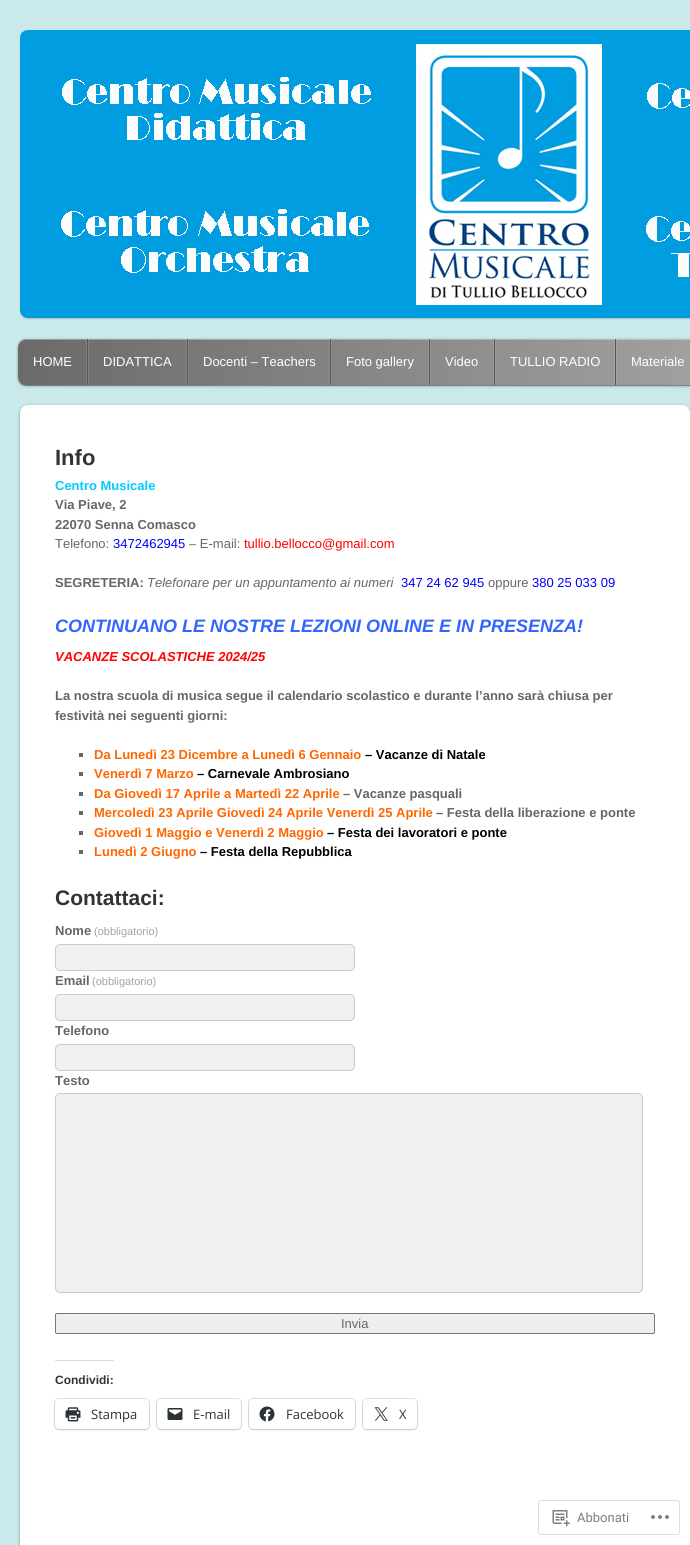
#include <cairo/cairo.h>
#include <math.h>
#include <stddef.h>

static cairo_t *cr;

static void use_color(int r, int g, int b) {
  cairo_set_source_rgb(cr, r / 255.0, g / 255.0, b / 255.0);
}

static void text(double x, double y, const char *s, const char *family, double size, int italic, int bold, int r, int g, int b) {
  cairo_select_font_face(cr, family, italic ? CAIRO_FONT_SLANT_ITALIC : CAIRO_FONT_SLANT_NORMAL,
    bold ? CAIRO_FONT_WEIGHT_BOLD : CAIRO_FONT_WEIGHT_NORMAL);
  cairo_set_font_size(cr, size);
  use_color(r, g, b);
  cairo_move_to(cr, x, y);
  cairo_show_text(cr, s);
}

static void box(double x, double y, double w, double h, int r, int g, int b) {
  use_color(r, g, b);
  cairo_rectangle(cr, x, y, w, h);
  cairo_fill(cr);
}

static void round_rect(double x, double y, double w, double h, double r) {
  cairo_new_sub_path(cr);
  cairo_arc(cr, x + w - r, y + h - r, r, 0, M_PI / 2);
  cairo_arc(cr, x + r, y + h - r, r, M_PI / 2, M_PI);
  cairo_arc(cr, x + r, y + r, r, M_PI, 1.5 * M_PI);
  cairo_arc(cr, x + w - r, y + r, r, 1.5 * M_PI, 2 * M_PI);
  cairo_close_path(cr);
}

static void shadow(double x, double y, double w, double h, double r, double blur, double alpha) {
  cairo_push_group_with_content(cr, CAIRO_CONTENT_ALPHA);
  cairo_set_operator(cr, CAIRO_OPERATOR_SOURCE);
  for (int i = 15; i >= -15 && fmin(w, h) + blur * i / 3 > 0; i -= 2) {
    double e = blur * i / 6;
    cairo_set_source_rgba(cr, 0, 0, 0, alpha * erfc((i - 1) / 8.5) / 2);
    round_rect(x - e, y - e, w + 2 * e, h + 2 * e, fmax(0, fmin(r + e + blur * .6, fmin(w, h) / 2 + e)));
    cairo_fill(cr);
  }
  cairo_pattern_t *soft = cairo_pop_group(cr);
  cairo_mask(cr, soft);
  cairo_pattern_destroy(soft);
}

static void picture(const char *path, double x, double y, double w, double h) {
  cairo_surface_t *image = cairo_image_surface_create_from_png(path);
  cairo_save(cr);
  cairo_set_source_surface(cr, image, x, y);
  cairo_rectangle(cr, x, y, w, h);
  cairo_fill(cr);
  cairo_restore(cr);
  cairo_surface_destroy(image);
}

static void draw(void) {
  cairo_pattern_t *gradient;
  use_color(201, 233, 234);
  cairo_paint(cr);
  use_color(0, 0, 0);
  shadow(20, 31, 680, 288, 8, 0.5, 0.15);
  picture("img_01.png", 20, 30, 670, 288);
  shadow(18, 340, 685, 46, 8, 1.5, 0.3);
  cairo_set_source_rgba(cr, 0, 0, 0, 0.3);
  cairo_new_path(cr);
  cairo_move_to(cr, 18, 377);
  cairo_curve_to(cr, 18, 382, 21, 386, 26, 386);
  cairo_line_to(cr, 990, 386);
  cairo_curve_to(cr, 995, 386, 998, 382, 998, 377);
  cairo_curve_to(cr, 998, 381, 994, 385, 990, 385);
  cairo_line_to(cr, 26, 385);
  cairo_curve_to(cr, 22, 385, 18, 381, 18, 377);
  cairo_close_path(cr);
  cairo_fill(cr);
  gradient = cairo_pattern_create_linear(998, 362, 18, 362);
  cairo_pattern_add_color_stop_rgba(gradient, 0, 0.725, 0.725, 0.725, 1);
  cairo_pattern_add_color_stop_rgba(gradient, 1, 0.416, 0.416, 0.416, 1);
  cairo_set_source(cr, gradient);
  cairo_pattern_destroy(gradient);
  round_rect(18, 339, 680, 46, 8);
  cairo_fill(cr);
  cairo_set_source_rgba(cr, 1, 1, 1, 0.3);
  cairo_new_path(cr);
  cairo_move_to(cr, 26, 340);
  cairo_line_to(cr, 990, 340);
  cairo_curve_to(cr, 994, 340, 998, 344, 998, 348);
  cairo_curve_to(cr, 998, 343, 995, 339, 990, 339);
  cairo_line_to(cr, 26, 339);
  cairo_curve_to(cr, 21, 339, 18, 343, 18, 348);
  cairo_curve_to(cr, 18, 344, 22, 340, 26, 340);
  cairo_close_path(cr);
  cairo_fill(cr);
  cairo_set_source_rgba(cr, 1, 1, 1, 0.1);
  cairo_rectangle(cr, 88, 339, 1, 46);
  cairo_fill(cr);
  cairo_rectangle(cr, 86, 339, 1, 46);
  cairo_fill(cr);
  box(87, 339, 1, 46, 87, 87, 87);
  cairo_set_source_rgba(cr, 1, 1, 1, 0.1);
  cairo_rectangle(cr, 188, 339, 1, 46);
  cairo_fill(cr);
  cairo_rectangle(cr, 186, 339, 1, 46);
  cairo_fill(cr);
  box(187, 339, 1, 46, 87, 87, 87);
  cairo_set_source_rgba(cr, 1, 1, 1, 0.1);
  cairo_rectangle(cr, 331, 339, 1, 46);
  cairo_fill(cr);
  cairo_rectangle(cr, 329, 339, 1, 46);
  cairo_fill(cr);
  box(330, 339, 1, 46, 87, 87, 87);
  cairo_set_source_rgba(cr, 1, 1, 1, 0.1);
  cairo_rectangle(cr, 430, 339, 1, 46);
  cairo_fill(cr);
  cairo_rectangle(cr, 428, 339, 1, 46);
  cairo_fill(cr);
  box(429, 339, 1, 46, 87, 87, 87);
  cairo_set_source_rgba(cr, 1, 1, 1, 0.1);
  cairo_rectangle(cr, 495, 339, 1, 46);
  cairo_fill(cr);
  cairo_rectangle(cr, 493, 339, 1, 46);
  cairo_fill(cr);
  box(494, 339, 1, 46, 87, 87, 87);
  cairo_set_source_rgba(cr, 1, 1, 1, 0.1);
  cairo_rectangle(cr, 616, 339, 1, 46);
  cairo_fill(cr);
  cairo_rectangle(cr, 614, 339, 1, 46);
  cairo_fill(cr);
  box(615, 339, 1, 46, 87, 87, 87);
  use_color(0, 0, 0);
  shadow(20, 406, 670, 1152, 8, 1.5, 0.4);
  use_color(255, 255, 255);
  round_rect(20, 405, 670, 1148, 8);
  cairo_fill(cr);
  box(79, 753, 4, 4, 102, 102, 102);
  box(79, 772, 4, 4, 102, 102, 102);
  box(79, 792, 4, 4, 102, 102, 102);
  box(79, 811, 4, 4, 102, 102, 102);
  box(79, 831, 4, 4, 102, 102, 102);
  box(79, 850, 4, 4, 102, 102, 102);
  use_color(240, 240, 240);
  round_rect(55.5, 944.5, 299, 26, 4.5);
  cairo_fill_preserve(cr);
  use_color(204, 204, 204);
  cairo_set_line_width(cr, 1);
  cairo_stroke(cr);
  use_color(240, 240, 240);
  round_rect(55.5, 994.5, 299, 26, 4.5);
  cairo_fill_preserve(cr);
  use_color(204, 204, 204);
  cairo_stroke(cr);
  use_color(240, 240, 240);
  round_rect(55.5, 1044.5, 299, 26, 4.5);
  cairo_fill_preserve(cr);
  use_color(204, 204, 204);
  cairo_stroke(cr);
  use_color(240, 240, 240);
  round_rect(55.5, 1093.5, 587, 199, 4.5);
  cairo_fill_preserve(cr);
  use_color(204, 204, 204);
  cairo_stroke(cr);
  use_color(239, 239, 239);
  round_rect(55.5, 1313.5, 599, 20, 1.5);
  cairo_fill_preserve(cr);
  use_color(118, 118, 118);
  cairo_stroke(cr);
  box(55, 1360, 59, 1, 220, 220, 222);
  round_rect(54.5, 1398.5, 95, 31, 4.5);
  use_color(224, 224, 224);
  cairo_stroke(cr);
  use_color(0, 0, 0);
  shadow(55, 1400, 94, 30, 4, 1, 0.12);
  use_color(255, 255, 255);
  round_rect(55, 1399, 94, 30, 4);
  cairo_fill(cr);
  picture("img_02.png", 65, 1407, 16, 15);
  round_rect(156.5, 1398.5, 85, 31, 4.5);
  use_color(224, 224, 224);
  cairo_stroke(cr);
  use_color(0, 0, 0);
  shadow(157, 1400, 84, 30, 4, 1, 0.12);
  use_color(255, 255, 255);
  round_rect(157, 1399, 84, 30, 4);
  cairo_fill(cr);
  picture("img_03.png", 167, 1408, 16, 12);
  round_rect(248.5, 1398.5, 107, 31, 4.5);
  use_color(224, 224, 224);
  cairo_stroke(cr);
  use_color(0, 0, 0);
  shadow(249, 1400, 106, 30, 4, 1, 0.12);
  use_color(255, 255, 255);
  round_rect(249, 1399, 106, 30, 4);
  cairo_fill(cr);
  picture("img_04.png", 259, 1406, 16, 16);
  round_rect(362.5, 1398.5, 55, 31, 4.5);
  use_color(224, 224, 224);
  cairo_stroke(cr);
  use_color(0, 0, 0);
  shadow(363, 1400, 54, 30, 4, 1, 0.12);
  use_color(255, 255, 255);
  round_rect(363, 1399, 54, 30, 4);
  cairo_fill(cr);
  picture("img_05.png", 374, 1407, 14, 14);
  round_rect(538.5, 1500.5, 141, 34, 2.5);
  use_color(221, 221, 223);
  cairo_stroke(cr);
  picture("img_06.png", 552, 1510, 18, 17);
  picture("img_07.png", 651, 1515, 18, 4);
  text(33, 366, "HOME", "Liberation Sans", 13, 0, 0, 255, 255, 255);
  text(103, 366, "DIDATTICA", "Liberation Sans", 13, 0, 0, 255, 255, 255);
  text(203, 366, "Docenti – Teachers", "Liberation Sans", 13, 0, 0, 255, 255, 255);
  text(346, 366, "Foto gallery", "Liberation Sans", 13, 0, 0, 255, 255, 255);
  text(445, 366, "Video", "Liberation Sans", 13, 0, 0, 255, 255, 255);
  text(510, 366, "TULLIO RADIO", "Liberation Sans", 13, 0, 0, 255, 255, 255);
  text(631, 366, "Materiale", "Liberation Sans", 13, 0, 0, 255, 255, 255);
  text(55, 465, "Info", "Liberation Sans", 22, 0, 1, 51, 51, 51);
  text(55, 490, "Centro Musicale", "Liberation Sans", 13, 0, 1, 0, 204, 255);
  text(55, 509, "Via Piave, 2", "Liberation Sans", 13, 0, 1, 102, 102, 102);
  text(55, 529, "22070 Senna Comasco", "Liberation Sans", 13, 0, 1, 102, 102, 102);
  text(55, 548, "Telefono:", "Liberation Sans", 13, 0, 0, 102, 102, 102);
  text(113, 548, "3472462945", "Liberation Sans", 13, 0, 0, 0, 0, 255);
  text(189, 548, "– E-mail:", "Liberation Sans", 13, 0, 0, 102, 102, 102);
  text(244, 548, "tullio.bellocco@gmail.com", "Liberation Sans", 13, 0, 0, 255, 0, 0);
  text(55, 587, "SEGRETERIA:", "Liberation Sans", 13, 0, 1, 102, 102, 102);
  text(147, 587, "Telefonare per un appuntamento ai numeri", "Liberation Sans", 13, 1, 0, 102, 102, 102);
  text(401, 587, "347 24 62 945", "Liberation Sans", 13, 0, 0, 0, 0, 255);
  text(488, 587, "oppure", "Liberation Sans", 13, 0, 0, 102, 102, 102);
  text(532, 587, "380 25 033 09", "Liberation Sans", 13, 0, 0, 0, 0, 255);
  text(55, 632, "CONTINUANO LE NOSTRE LEZIONI ONLINE E IN PRESENZA!", "Liberation Sans", 18, 1, 1, 51, 102, 255);
  text(55, 661, "VACANZE SCOLASTICHE 2024/25", "Liberation Sans", 13, 1, 1, 255, 0, 0);
  text(55, 700, "La nostra scuola di musica segue il calendario scolastico e durante l’anno sarà chiusa per", "Liberation Sans", 13, 0, 1, 102, 102, 102);
  text(55, 720, "festività nei seguenti giorni:", "Liberation Sans", 13, 0, 1, 102, 102, 102);
  text(94, 759, "Da Lunedì 23 Dicembre a Lunedì 6 Gennaio", "Liberation Sans", 13, 0, 1, 255, 102, 0);
  text(365, 759, "– Vacanze di Natale", "Liberation Sans", 13, 0, 1, 0, 0, 0);
  text(94, 778, "Venerdì 7 Marzo", "Liberation Sans", 13, 0, 1, 255, 102, 0);
  text(197, 778, "– Carnevale Ambrosiano", "Liberation Sans", 13, 0, 1, 0, 0, 0);
  text(94, 798, "Da Giovedì 17 Aprile a Martedì 22 Aprile", "Liberation Sans", 13, 0, 1, 255, 102, 0);
  text(343, 798, "– Vacanze pasquali", "Liberation Sans", 13, 0, 1, 102, 102, 102);
  text(94, 817, "Mercoledì 23 Aprile Giovedì 24 Aprile Venerdì 25 Aprile", "Liberation Sans", 13, 0, 1, 255, 102, 0);
  text(436, 817, "– Festa della liberazione e ponte", "Liberation Sans", 13, 0, 1, 102, 102, 102);
  text(94, 837, "Giovedì 1 Maggio e Venerdì 2 Maggio", "Liberation Sans", 13, 0, 1, 255, 102, 0);
  text(327, 837, "– Festa dei lavoratori e ponte", "Liberation Sans", 13, 0, 1, 0, 0, 0);
  text(94, 856, "Lunedì 2 Giugno", "Liberation Sans", 13, 0, 1, 255, 102, 0);
  text(200, 856, "– Festa della Repubblica", "Liberation Sans", 13, 0, 1, 0, 0, 0);
  text(55, 905, "Contattaci:", "Liberation Sans", 21, 0, 1, 51, 51, 51);
  text(55, 935, "Nome", "Liberation Sans", 13, 0, 1, 102, 102, 102);
  text(94, 935, "(obbligatorio)", "Liberation Sans", 11, 0, 0, 163, 163, 163);
  text(55, 985, "Email", "Liberation Sans", 13, 0, 1, 102, 102, 102);
  text(92, 985, "(obbligatorio)", "Liberation Sans", 11, 0, 0, 163, 163, 163);
  text(55, 1035, "Telefono", "Liberation Sans", 13, 0, 1, 102, 102, 102);
  text(55, 1085, "Testo", "Liberation Sans", 13, 0, 1, 102, 102, 102);
  text(341, 1328, "Invia", "Liberation Sans", 13, 0, 0, 102, 102, 102);
  text(55, 1384, "Condividi:", "Liberation Sans", 12, 0, 1, 51, 51, 51);
  text(91, 1419, "Stampa", "Open Sans", 13, 0, 0, 44, 51, 56);
  text(193, 1419, "E-mail", "Open Sans", 13, 0, 0, 44, 51, 56);
  text(286, 1419, "Facebook", "Open Sans", 13, 0, 0, 44, 51, 56);
  text(399, 1419, "X", "Open Sans", 13, 0, 0, 44, 51, 56);
  text(577, 1522, "Abbonati", "Roboto", 13, 0, 0, 123, 127, 133);
}

int main(void) {
  cairo_surface_t *surface = cairo_image_surface_create(CAIRO_FORMAT_RGB24, 690, 1545);
  cr = cairo_create(surface);
  cairo_font_options_t *options = cairo_font_options_create();
  cairo_font_options_set_hint_metrics(options, CAIRO_HINT_METRICS_OFF);
  cairo_font_options_set_hint_style(options, CAIRO_HINT_STYLE_NONE);
  cairo_set_font_options(cr, options);
  cairo_set_miter_limit(cr, 4);
  draw();
  cairo_surface_write_to_png(surface, "out.png");
  cairo_font_options_destroy(options);
  cairo_destroy(cr);
  cairo_surface_destroy(surface);
  return 0;
}
